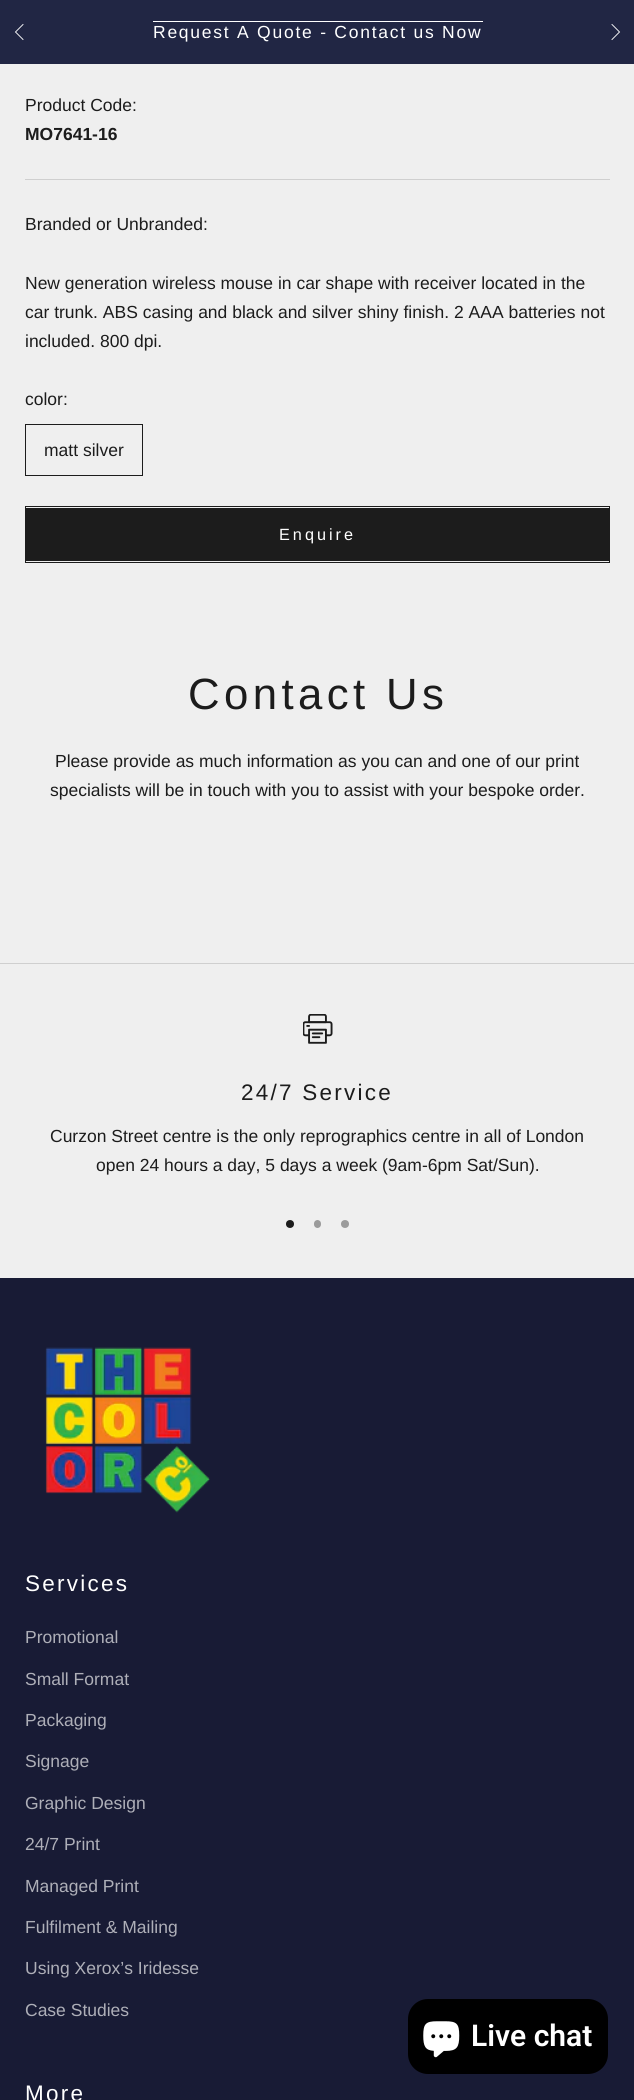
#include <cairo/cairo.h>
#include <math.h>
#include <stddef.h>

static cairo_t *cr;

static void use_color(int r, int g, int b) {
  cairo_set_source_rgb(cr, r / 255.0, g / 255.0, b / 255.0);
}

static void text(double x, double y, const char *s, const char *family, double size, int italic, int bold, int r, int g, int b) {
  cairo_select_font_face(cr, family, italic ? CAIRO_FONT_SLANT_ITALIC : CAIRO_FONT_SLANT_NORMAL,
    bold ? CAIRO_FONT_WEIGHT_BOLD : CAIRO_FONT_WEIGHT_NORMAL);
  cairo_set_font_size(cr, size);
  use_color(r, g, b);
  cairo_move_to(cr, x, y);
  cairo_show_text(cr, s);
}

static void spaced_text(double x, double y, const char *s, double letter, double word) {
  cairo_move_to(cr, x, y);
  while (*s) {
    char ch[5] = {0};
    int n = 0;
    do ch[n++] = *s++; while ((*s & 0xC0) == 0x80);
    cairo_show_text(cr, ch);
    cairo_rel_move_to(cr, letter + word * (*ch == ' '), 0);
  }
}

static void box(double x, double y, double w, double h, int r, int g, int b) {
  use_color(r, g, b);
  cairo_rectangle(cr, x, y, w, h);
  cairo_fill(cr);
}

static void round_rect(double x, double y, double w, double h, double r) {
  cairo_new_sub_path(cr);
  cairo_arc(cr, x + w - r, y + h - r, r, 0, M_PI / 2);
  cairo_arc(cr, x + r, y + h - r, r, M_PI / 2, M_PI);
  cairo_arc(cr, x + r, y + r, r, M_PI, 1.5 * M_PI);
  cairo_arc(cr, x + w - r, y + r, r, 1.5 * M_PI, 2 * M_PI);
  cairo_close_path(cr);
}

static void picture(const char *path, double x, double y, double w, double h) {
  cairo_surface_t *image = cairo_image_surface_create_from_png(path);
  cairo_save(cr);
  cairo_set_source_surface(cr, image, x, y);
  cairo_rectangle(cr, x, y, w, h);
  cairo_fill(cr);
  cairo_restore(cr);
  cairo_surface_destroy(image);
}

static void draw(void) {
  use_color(239, 239, 239);
  cairo_paint(cr);
  box(0, 0, 634, 64, 33, 38, 68);
  cairo_new_path(cr);
  cairo_move_to(cr, 23, 24.5);
  cairo_line_to(cr, 15.5, 32);
  cairo_line_to(cr, 23, 39.5);
  use_color(255, 255, 255);
  cairo_set_line_width(cr, 0.9);
  cairo_set_line_cap(cr, CAIRO_LINE_CAP_SQUARE);
  cairo_stroke(cr);
  box(153, 21, 330, 1, 255, 255, 255);
  cairo_new_path(cr);
  cairo_move_to(cr, 612, 39.5);
  cairo_line_to(cr, 619.5, 32);
  cairo_line_to(cr, 612, 24.5);
  cairo_stroke(cr);
  box(25, 179, 585, 1, 207, 207, 207);
  cairo_rectangle(cr, 25.5, 424.5, 117, 51);
  use_color(28, 28, 28);
  cairo_set_line_width(cr, 1);
  cairo_set_line_cap(cr, CAIRO_LINE_CAP_BUTT);
  cairo_stroke(cr);
  box(26, 508, 583, 53, 28, 28, 28);
  cairo_rectangle(cr, 25.5, 506.5, 584, 56);
  cairo_stroke(cr);
  box(0, 963, 634, 1, 207, 207, 207);
  picture("img_01.png", 303, 1014, 30, 30);
  use_color(28, 28, 28);
  cairo_arc(cr, 290, 1224, 4, 0, 2 * M_PI);
  cairo_fill(cr);
  use_color(155, 155, 155);
  round_rect(314, 1220, 7, 8, 3.5);
  cairo_fill(cr);
  cairo_arc(cr, 345, 1224, 4, 0, 2 * M_PI);
  cairo_fill(cr);
  box(0, 1278, 634, 822, 24, 27, 53);
  picture("img_02.png", 45, 1347, 165, 166);
  use_color(0, 0, 0);
  round_rect(408, 1999, 200, 75, 20);
  cairo_fill(cr);
  picture("img_03.png", 423, 2021, 37, 37);
  cairo_select_font_face(cr, "Liberation Sans", CAIRO_FONT_SLANT_NORMAL, CAIRO_FONT_WEIGHT_NORMAL);
  cairo_set_font_size(cr, 17.5);
  use_color(255, 255, 255);
  spaced_text(153, 38, "Request A Quote - Contact us Now", 1.75, 0);
  text(25, 111, "Product Code:", "Liberation Sans", 17.5, 0, 0, 28, 28, 28);
  text(25, 140, "MO7641-16", "Liberation Sans", 17.5, 0, 1, 28, 28, 28);
  text(25, 230, "Branded or Unbranded:", "Liberation Sans", 17.5, 0, 0, 28, 28, 28);
  text(25, 289, "New generation wireless mouse in car shape with receiver located in the", "Liberation Sans", 17.5, 0, 0, 28, 28, 28);
  text(25, 318, "car trunk. ABS casing and black and silver shiny finish. 2 AAA batteries not", "Liberation Sans", 17.5, 0, 0, 28, 28, 28);
  text(25, 347, "included. 800 dpi.", "Liberation Sans", 17.5, 0, 0, 28, 28, 28);
  text(25, 405, "color:", "Liberation Sans", 17.5, 0, 0, 28, 28, 28);
  text(44, 456, "matt silver", "Liberation Sans", 17.5, 0, 0, 28, 28, 28);
  cairo_set_font_size(cr, 16.25);
  use_color(255, 255, 255);
  spaced_text(279, 540, "Enquire", 3, 0);
  cairo_set_font_size(cr, 43.75);
  use_color(28, 28, 28);
  spaced_text(188, 709, "Contact Us", 4.4, 0);
  text(55, 767, "Please provide as much information as you can and one of our print", "Liberation Sans", 17.5, 0, 0, 28, 28, 28);
  text(50, 796, "specialists will be in touch with you to assist with your bespoke order.", "Liberation Sans", 17.5, 0, 0, 28, 28, 28);
  cairo_set_font_size(cr, 22.5);
  spaced_text(241, 1100, "24/7 Service", 2.25, 0);
  text(50, 1142, "Curzon Street centre is the only reprographics centre in all of London", "Liberation Sans", 17.5, 0, 0, 28, 28, 28);
  text(96, 1171, "open 24 hours a day, 5 days a week (9am-6pm Sat/Sun).", "Liberation Sans", 17.5, 0, 0, 28, 28, 28);
  cairo_set_font_size(cr, 22.5);
  use_color(255, 255, 255);
  spaced_text(25, 1591, "Services", 2.25, 0);
  text(25, 1643, "Promotional", "Liberation Sans", 17.5, 0, 0, 174, 175, 184);
  text(25, 1685, "Small Format", "Liberation Sans", 17.5, 0, 0, 174, 175, 184);
  text(25, 1726, "Packaging", "Liberation Sans", 17.5, 0, 0, 174, 175, 184);
  text(25, 1767, "Signage", "Liberation Sans", 17.5, 0, 0, 174, 175, 184);
  text(25, 1809, "Graphic Design", "Liberation Sans", 17.5, 0, 0, 174, 175, 184);
  text(25, 1850, "24/7 Print", "Liberation Sans", 17.5, 0, 0, 174, 175, 184);
  text(25, 1892, "Managed Print", "Liberation Sans", 17.5, 0, 0, 174, 175, 184);
  text(25, 1933, "Fulfilment & Mailing", "Liberation Sans", 17.5, 0, 0, 174, 175, 184);
  text(25, 1974, "Using Xerox’s Iridesse", "Liberation Sans", 17.5, 0, 0, 174, 175, 184);
  text(25, 2016, "Case Studies", "Liberation Sans", 17.5, 0, 0, 174, 175, 184);
  cairo_set_font_size(cr, 22.5);
  use_color(255, 255, 255);
  spaced_text(25, 2101, "More", 2.25, 0);
  text(471, 2046, "Live chat", "Roboto SemiBold", 30, 0, 0, 255, 255, 255);
}

int main(void) {
  cairo_surface_t *surface = cairo_image_surface_create(CAIRO_FORMAT_RGB24, 634, 2100);
  cr = cairo_create(surface);
  cairo_font_options_t *options = cairo_font_options_create();
  cairo_font_options_set_hint_metrics(options, CAIRO_HINT_METRICS_OFF);
  cairo_font_options_set_hint_style(options, CAIRO_HINT_STYLE_NONE);
  cairo_set_font_options(cr, options);
  cairo_set_miter_limit(cr, 4);
  draw();
  cairo_surface_write_to_png(surface, "out.png");
  cairo_font_options_destroy(options);
  cairo_destroy(cr);
  cairo_surface_destroy(surface);
  return 0;
}
